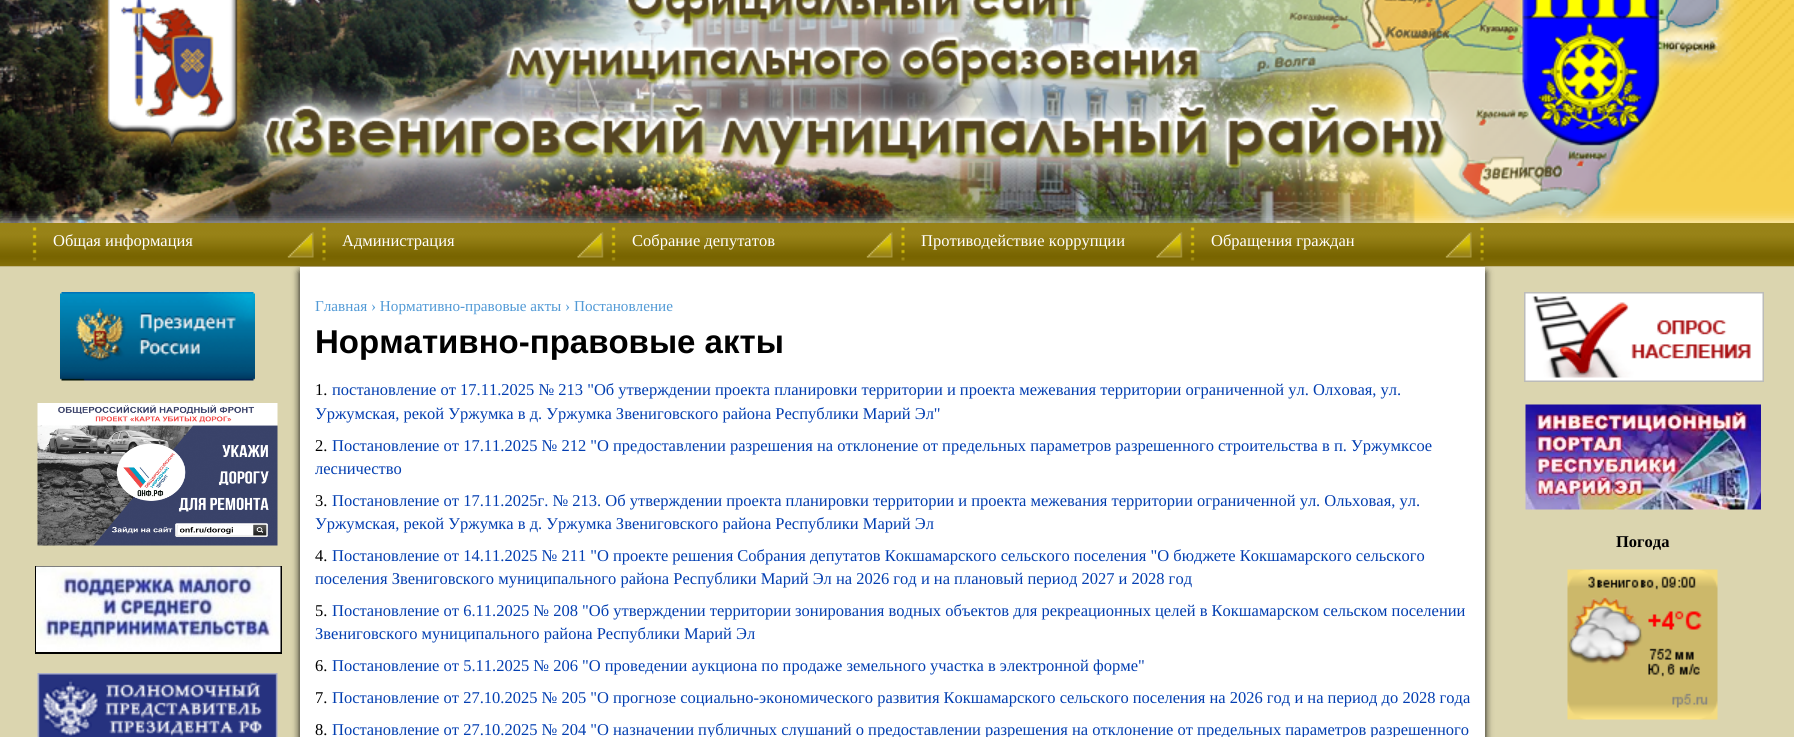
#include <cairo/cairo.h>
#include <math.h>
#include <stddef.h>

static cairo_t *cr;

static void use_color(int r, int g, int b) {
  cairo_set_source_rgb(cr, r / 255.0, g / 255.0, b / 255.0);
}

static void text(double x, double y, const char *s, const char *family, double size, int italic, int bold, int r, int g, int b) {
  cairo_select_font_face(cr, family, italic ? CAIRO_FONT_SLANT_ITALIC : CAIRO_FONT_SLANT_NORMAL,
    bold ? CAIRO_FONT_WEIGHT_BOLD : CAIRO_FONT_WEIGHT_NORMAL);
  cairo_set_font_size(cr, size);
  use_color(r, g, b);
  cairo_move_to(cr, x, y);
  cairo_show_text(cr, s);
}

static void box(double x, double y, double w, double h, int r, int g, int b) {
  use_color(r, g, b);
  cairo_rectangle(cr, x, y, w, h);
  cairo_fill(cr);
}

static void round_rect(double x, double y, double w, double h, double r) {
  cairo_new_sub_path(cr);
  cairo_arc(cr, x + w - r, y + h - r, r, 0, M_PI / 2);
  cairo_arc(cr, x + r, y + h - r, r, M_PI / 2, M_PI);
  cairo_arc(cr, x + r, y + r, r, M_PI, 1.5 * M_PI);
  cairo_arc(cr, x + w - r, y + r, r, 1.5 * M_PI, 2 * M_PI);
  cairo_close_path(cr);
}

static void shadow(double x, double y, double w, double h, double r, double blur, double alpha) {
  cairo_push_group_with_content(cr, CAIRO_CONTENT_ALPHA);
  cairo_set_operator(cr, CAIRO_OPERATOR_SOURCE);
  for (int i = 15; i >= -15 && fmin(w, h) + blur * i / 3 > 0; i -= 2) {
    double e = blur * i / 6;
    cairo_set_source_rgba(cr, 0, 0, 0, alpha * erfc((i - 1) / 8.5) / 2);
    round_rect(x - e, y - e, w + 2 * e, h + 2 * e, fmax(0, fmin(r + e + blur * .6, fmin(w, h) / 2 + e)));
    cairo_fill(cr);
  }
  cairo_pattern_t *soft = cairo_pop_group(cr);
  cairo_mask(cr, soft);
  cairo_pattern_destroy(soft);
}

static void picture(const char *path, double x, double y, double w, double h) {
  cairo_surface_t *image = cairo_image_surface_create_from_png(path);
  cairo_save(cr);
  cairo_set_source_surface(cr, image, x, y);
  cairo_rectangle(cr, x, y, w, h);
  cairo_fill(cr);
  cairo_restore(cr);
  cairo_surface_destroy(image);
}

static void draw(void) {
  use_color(255, 255, 255);
  cairo_paint(cr);
  picture("img_01.png", 937, 0, 67, 223);
  picture("img_02.png", 0, 0, 1794, 223);
  shadow(0, 224, 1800, 43, 0, 7, 1);
  picture("img_03.png", 0, 223, 1794, 44);
  picture("img_04.png", 32, 227, 5, 34);
  picture("img_05.png", 287, 232, 27, 26);
  picture("img_06.png", 322, 227, 4, 34);
  picture("img_07.png", 577, 232, 27, 26);
  picture("img_08.png", 611, 227, 5, 34);
  picture("img_09.png", 866, 232, 27, 26);
  picture("img_10.png", 901, 227, 4, 34);
  picture("img_11.png", 1156, 232, 27, 26);
  picture("img_12.png", 1190, 227, 5, 34);
  picture("img_13.png", 1445, 232, 27, 26);
  picture("img_14.png", 1480, 227, 4, 34);
  box(0, 267, 1794, 470, 219, 213, 175);
  picture("img_15.png", 60, 292, 195, 89);
  picture("img_16.png", 37, 403, 241, 143);
  cairo_rectangle(cr, 36, 567, 245, 86);
  use_color(0, 0, 0);
  cairo_stroke(cr);
  picture("img_17.png", 36, 566, 245, 86);
  picture("img_18.png", 37, 673, 241, 64);
  use_color(0, 0, 0);
  shadow(300, 272, 1185, 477, 0, 4, 1);
  box(300, 267, 1185, 470, 255, 255, 255);
  picture("img_19.png", 1524, 292, 240, 90);
  picture("img_20.png", 1525, 404, 236, 106);
  picture("img_21.png", 1567, 569, 151, 151);
  text(53, 246, "Общая информация", "Liberation Serif", 16.5, 0, 0, 255, 255, 255);
  text(342, 246, "Администрация", "Liberation Serif", 16.5, 0, 0, 255, 255, 255);
  text(632, 246, "Собрание депутатов", "Liberation Serif", 16.5, 0, 0, 255, 255, 255);
  text(921, 246, "Противодействие коррупции", "Liberation Serif", 16.5, 0, 0, 255, 255, 255);
  text(1211, 246, "Обращения граждан", "Liberation Serif", 16.5, 0, 0, 255, 255, 255);
  text(315, 311, "Главная › Нормативно-правовые акты › Постановление", "Liberation Serif", 15.2, 0, 0, 82, 154, 214);
  text(315, 353, "Нормативно-правовые акты", "Liberation Sans", 33, 0, 1, 0, 0, 0);
  text(315, 395, "1.", "Liberation Serif", 16.5, 0, 0, 0, 0, 0);
  text(332, 395, "постановление от 17.11.2025 № 213 \"Об утверждении проекта планировки территории и проекта межевания территории ограниченной ул. Олховая, ул.", "Liberation Serif", 16.5, 0, 0, 2, 62, 177);
  text(315, 419, "Уржумская, рекой Уржумка в д. Уржумка Звениговского района Республики Марий Эл\"", "Liberation Serif", 16.5, 0, 0, 2, 62, 177);
  text(315, 451, "2.", "Liberation Serif", 16.5, 0, 0, 0, 0, 0);
  text(332, 451, "Постановление от 17.11.2025 № 212 \"О предоставлении разрешения на отклонение от предельных параметров разрешенного строительства в п. Уржумксое", "Liberation Serif", 16.5, 0, 0, 2, 62, 177);
  text(315, 474, "лесничество", "Liberation Serif", 16.5, 0, 0, 2, 62, 177);
  text(315, 506, "3.", "Liberation Serif", 16.5, 0, 0, 0, 0, 0);
  text(332, 506, "Постановление от 17.11.2025г. № 213. Об утверждении проекта планировки территории и проекта межевания территории ограниченной ул. Ольховая, ул.", "Liberation Serif", 16.5, 0, 0, 2, 62, 177);
  text(315, 529, "Уржумская, рекой Уржумка в д. Уржумка Звениговского района Республики Марий Эл", "Liberation Serif", 16.5, 0, 0, 2, 62, 177);
  text(315, 561, "4.", "Liberation Serif", 16.5, 0, 0, 0, 0, 0);
  text(332, 561, "Постановление от 14.11.2025 № 211 \"О проекте решения Собрания депутатов Кокшамарского сельского поселения \"О бюджете Кокшамарского сельского", "Liberation Serif", 16.5, 0, 0, 2, 62, 177);
  text(315, 584, "поселения Звениговского муниципального района Республики Марий Эл на 2026 год и на плановый период 2027 и 2028 год", "Liberation Serif", 16.5, 0, 0, 2, 62, 177);
  text(315, 616, "5.", "Liberation Serif", 16.5, 0, 0, 0, 0, 0);
  text(332, 616, "Постановление от 6.11.2025 № 208 \"Об утверждении территории зонирования водных объектов для рекреационных целей в Кокшамарском сельском поселении", "Liberation Serif", 16.5, 0, 0, 2, 62, 177);
  text(315, 639, "Звениговского муниципального района Республики Марий Эл", "Liberation Serif", 16.5, 0, 0, 2, 62, 177);
  text(315, 671, "6.", "Liberation Serif", 16.5, 0, 0, 0, 0, 0);
  text(332, 671, "Постановление от 5.11.2025 № 206 \"О проведении аукциона по продаже земельного участка в электронной форме\"", "Liberation Serif", 16.5, 0, 0, 2, 62, 177);
  text(315, 703, "7.", "Liberation Serif", 16.5, 0, 0, 0, 0, 0);
  text(332, 703, "Постановление от 27.10.2025 № 205 \"О прогнозе социально-экономического развития Кокшамарского сельского поселения на 2026 год и на период до 2028 года", "Liberation Serif", 16.5, 0, 0, 2, 62, 177);
  text(315, 735, "8.", "Liberation Serif", 16.5, 0, 0, 0, 0, 0);
  text(332, 735, "Постановление от 27.10.2025 № 204 \"О назначении публичных слушаний о предоставлении разрешения на отклонение от предельных параметров разрешенного", "Liberation Serif", 16.5, 0, 0, 2, 62, 177);
  text(1616, 547, "Погода", "Liberation Serif", 16.5, 0, 1, 0, 0, 0);
}

int main(void) {
  cairo_surface_t *surface = cairo_image_surface_create(CAIRO_FORMAT_RGB24, 1794, 737);
  cr = cairo_create(surface);
  cairo_font_options_t *options = cairo_font_options_create();
  cairo_font_options_set_hint_metrics(options, CAIRO_HINT_METRICS_OFF);
  cairo_font_options_set_hint_style(options, CAIRO_HINT_STYLE_NONE);
  cairo_set_font_options(cr, options);
  cairo_set_miter_limit(cr, 4);
  draw();
  cairo_surface_write_to_png(surface, "out.png");
  cairo_font_options_destroy(options);
  cairo_destroy(cr);
  cairo_surface_destroy(surface);
  return 0;
}
